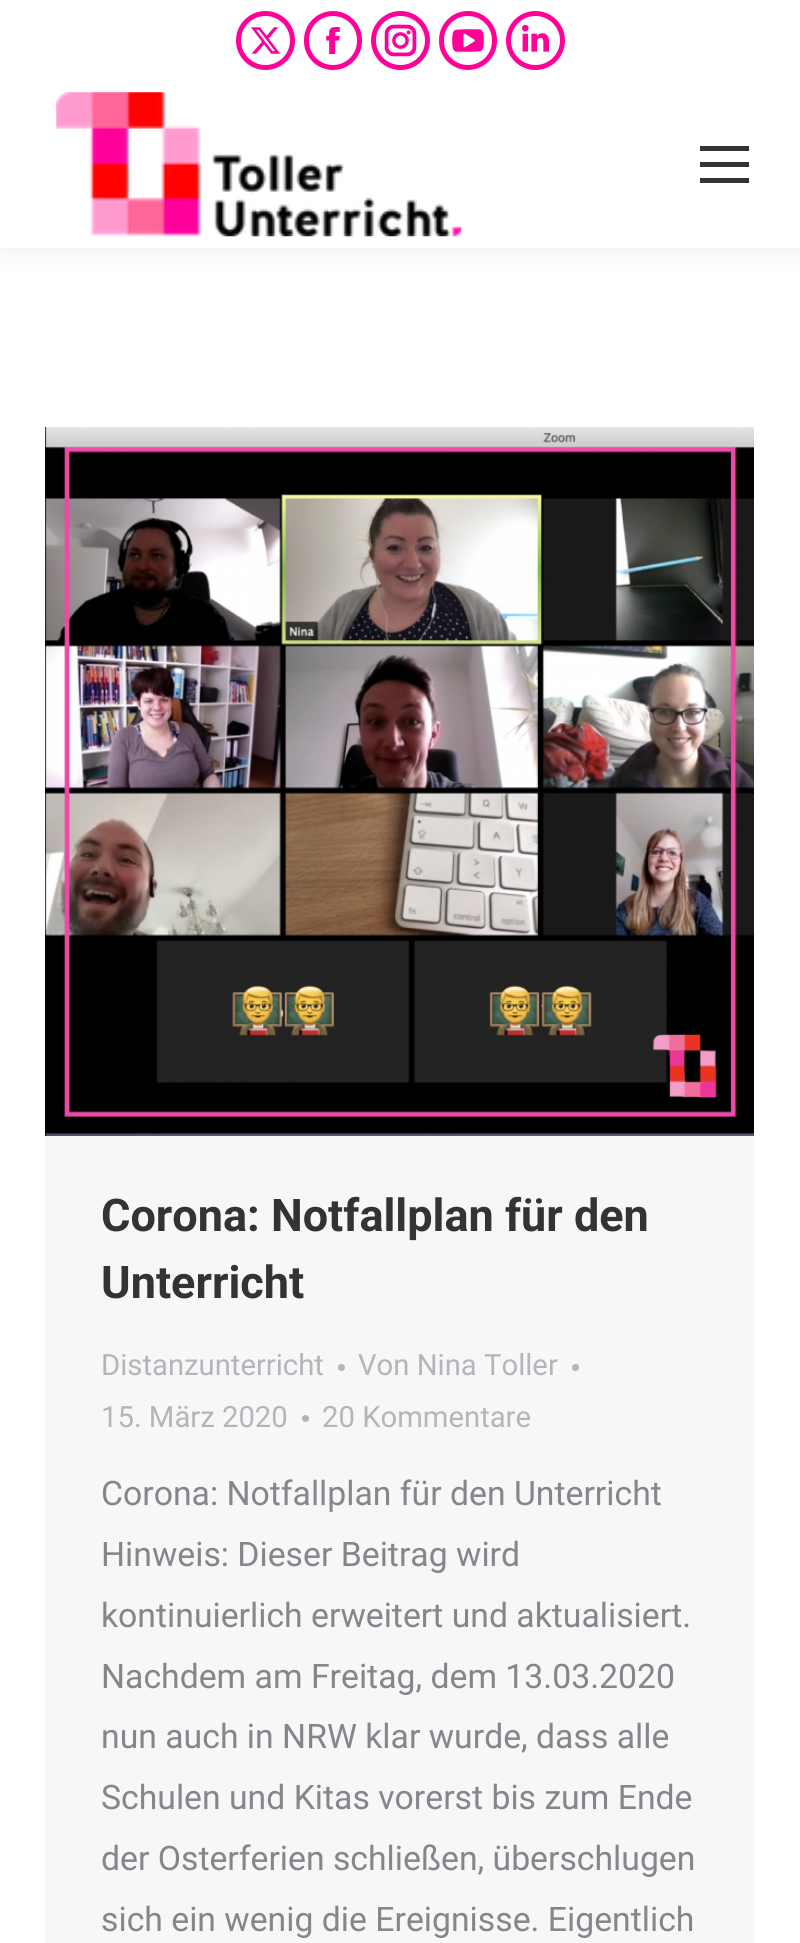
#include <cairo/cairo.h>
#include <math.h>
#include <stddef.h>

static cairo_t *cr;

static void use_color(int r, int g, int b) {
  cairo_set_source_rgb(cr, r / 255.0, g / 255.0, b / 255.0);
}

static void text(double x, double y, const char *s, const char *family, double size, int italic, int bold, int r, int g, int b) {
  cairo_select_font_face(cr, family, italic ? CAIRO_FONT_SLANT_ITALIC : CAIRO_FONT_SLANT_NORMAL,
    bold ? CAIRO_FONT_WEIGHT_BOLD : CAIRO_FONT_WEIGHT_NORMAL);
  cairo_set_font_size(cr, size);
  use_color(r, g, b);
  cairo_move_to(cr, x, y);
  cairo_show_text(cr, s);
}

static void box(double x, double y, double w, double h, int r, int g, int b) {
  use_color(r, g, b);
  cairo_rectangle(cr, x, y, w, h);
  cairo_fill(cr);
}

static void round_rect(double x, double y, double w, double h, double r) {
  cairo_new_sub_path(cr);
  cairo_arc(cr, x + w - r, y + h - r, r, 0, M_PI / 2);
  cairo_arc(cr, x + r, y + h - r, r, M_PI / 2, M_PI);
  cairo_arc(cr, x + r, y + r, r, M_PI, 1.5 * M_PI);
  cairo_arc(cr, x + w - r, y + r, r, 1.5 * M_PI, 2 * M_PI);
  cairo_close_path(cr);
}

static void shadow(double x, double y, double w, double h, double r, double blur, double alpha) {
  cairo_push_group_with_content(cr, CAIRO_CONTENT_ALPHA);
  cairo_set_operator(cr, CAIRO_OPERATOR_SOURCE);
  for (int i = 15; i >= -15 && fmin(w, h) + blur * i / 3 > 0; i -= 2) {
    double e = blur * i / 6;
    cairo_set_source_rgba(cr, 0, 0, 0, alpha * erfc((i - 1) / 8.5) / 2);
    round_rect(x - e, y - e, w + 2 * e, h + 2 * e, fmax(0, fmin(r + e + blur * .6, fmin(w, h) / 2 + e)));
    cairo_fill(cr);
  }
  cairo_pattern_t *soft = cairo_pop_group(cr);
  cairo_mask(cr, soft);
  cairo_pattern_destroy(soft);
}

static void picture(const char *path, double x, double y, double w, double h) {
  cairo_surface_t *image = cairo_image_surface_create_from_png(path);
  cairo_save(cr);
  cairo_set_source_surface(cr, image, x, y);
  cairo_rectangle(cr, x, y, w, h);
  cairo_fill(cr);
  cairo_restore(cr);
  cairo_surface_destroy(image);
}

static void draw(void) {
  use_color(255, 255, 255);
  cairo_paint(cr);
  use_color(0, 0, 0);
  shadow(-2, -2, 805, 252, 0, 17, 0.07);
  box(0, 0, 800, 248, 255, 255, 255);
  cairo_arc(cr, 265.5, 40.5, 27, 0, 2 * M_PI);
  use_color(255, 0, 153);
  cairo_set_line_width(cr, 5);
  cairo_stroke(cr);
  picture("img_01.png", 251, 27, 30, 27);
  round_rect(306.5, 13.5, 53, 54, 26.5);
  cairo_stroke(cr);
  picture("img_02.png", 326, 27, 14, 27);
  cairo_arc(cr, 400.5, 40.5, 27, 0, 2 * M_PI);
  cairo_stroke(cr);
  picture("img_03.png", 384, 24, 33, 33);
  round_rect(441.5, 13.5, 53, 54, 26.5);
  cairo_stroke(cr);
  picture("img_04.png", 452, 29, 32, 23);
  cairo_arc(cr, 535.5, 40.5, 27, 0, 2 * M_PI);
  cairo_stroke(cr);
  picture("img_05.png", 522, 24, 27, 28);
  picture("img_06.png", 56, 92, 406, 145);
  box(700, 146, 49, 5, 51, 51, 51);
  box(700, 162, 49, 5, 51, 51, 51);
  box(700, 178, 49, 5, 51, 51, 51);
  box(45, 1136, 709, 807, 247, 247, 247);
  picture("img_07.png", 45, 427, 709, 709);
  use_color(180, 181, 187);
  cairo_arc(cr, 341.5, 1367.5, 3.5, 0, 2 * M_PI);
  cairo_fill(cr);
  cairo_arc(cr, 575.5, 1367.5, 3.5, 0, 2 * M_PI);
  cairo_fill(cr);
  cairo_arc(cr, 305.5, 1418.5, 3.5, 0, 2 * M_PI);
  cairo_fill(cr);
  text(101, 1231, "Corona: Notfallplan für den", "Roboto", 45, 0, 1, 51, 51, 51);
  text(101, 1298, "Unterricht", "Roboto", 45, 0, 1, 51, 51, 51);
  text(101, 1375, "Distanzunterricht", "Roboto", 29.25, 0, 0, 180, 181, 187);
  text(358, 1375, "Von Nina Toller", "Roboto", 29.25, 0, 0, 180, 181, 187);
  text(101, 1427, "15. März 2020", "Roboto", 29.25, 0, 0, 180, 181, 187);
  text(322, 1427, "20 Kommentare", "Roboto", 29.25, 0, 0, 180, 181, 187);
  text(101, 1505, "Corona: Notfallplan für den Unterricht", "Roboto", 33.75, 0, 0, 133, 134, 140);
  text(101, 1566, "Hinweis: Dieser Beitrag wird", "Roboto", 33.75, 0, 0, 133, 134, 140);
  text(101, 1627, "kontinuierlich erweitert und aktualisiert.", "Roboto", 33.75, 0, 0, 133, 134, 140);
  text(101, 1688, "Nachdem am Freitag, dem 13.03.2020", "Roboto", 33.75, 0, 0, 133, 134, 140);
  text(101, 1748, "nun auch in NRW klar wurde, dass alle", "Roboto", 33.75, 0, 0, 133, 134, 140);
  text(101, 1809, "Schulen und Kitas vorerst bis zum Ende", "Roboto", 33.75, 0, 0, 133, 134, 140);
  text(101, 1870, "der Osterferien schließen, überschlugen", "Roboto", 33.75, 0, 0, 133, 134, 140);
  text(101, 1931, "sich ein wenig die Ereignisse. Eigentlich", "Roboto", 33.75, 0, 0, 133, 134, 140);
}

int main(void) {
  cairo_surface_t *surface = cairo_image_surface_create(CAIRO_FORMAT_RGB24, 800, 1943);
  cr = cairo_create(surface);
  cairo_font_options_t *options = cairo_font_options_create();
  cairo_font_options_set_hint_metrics(options, CAIRO_HINT_METRICS_OFF);
  cairo_font_options_set_hint_style(options, CAIRO_HINT_STYLE_NONE);
  cairo_set_font_options(cr, options);
  cairo_set_miter_limit(cr, 4);
  draw();
  cairo_surface_write_to_png(surface, "out.png");
  cairo_font_options_destroy(options);
  cairo_destroy(cr);
  cairo_surface_destroy(surface);
  return 0;
}
